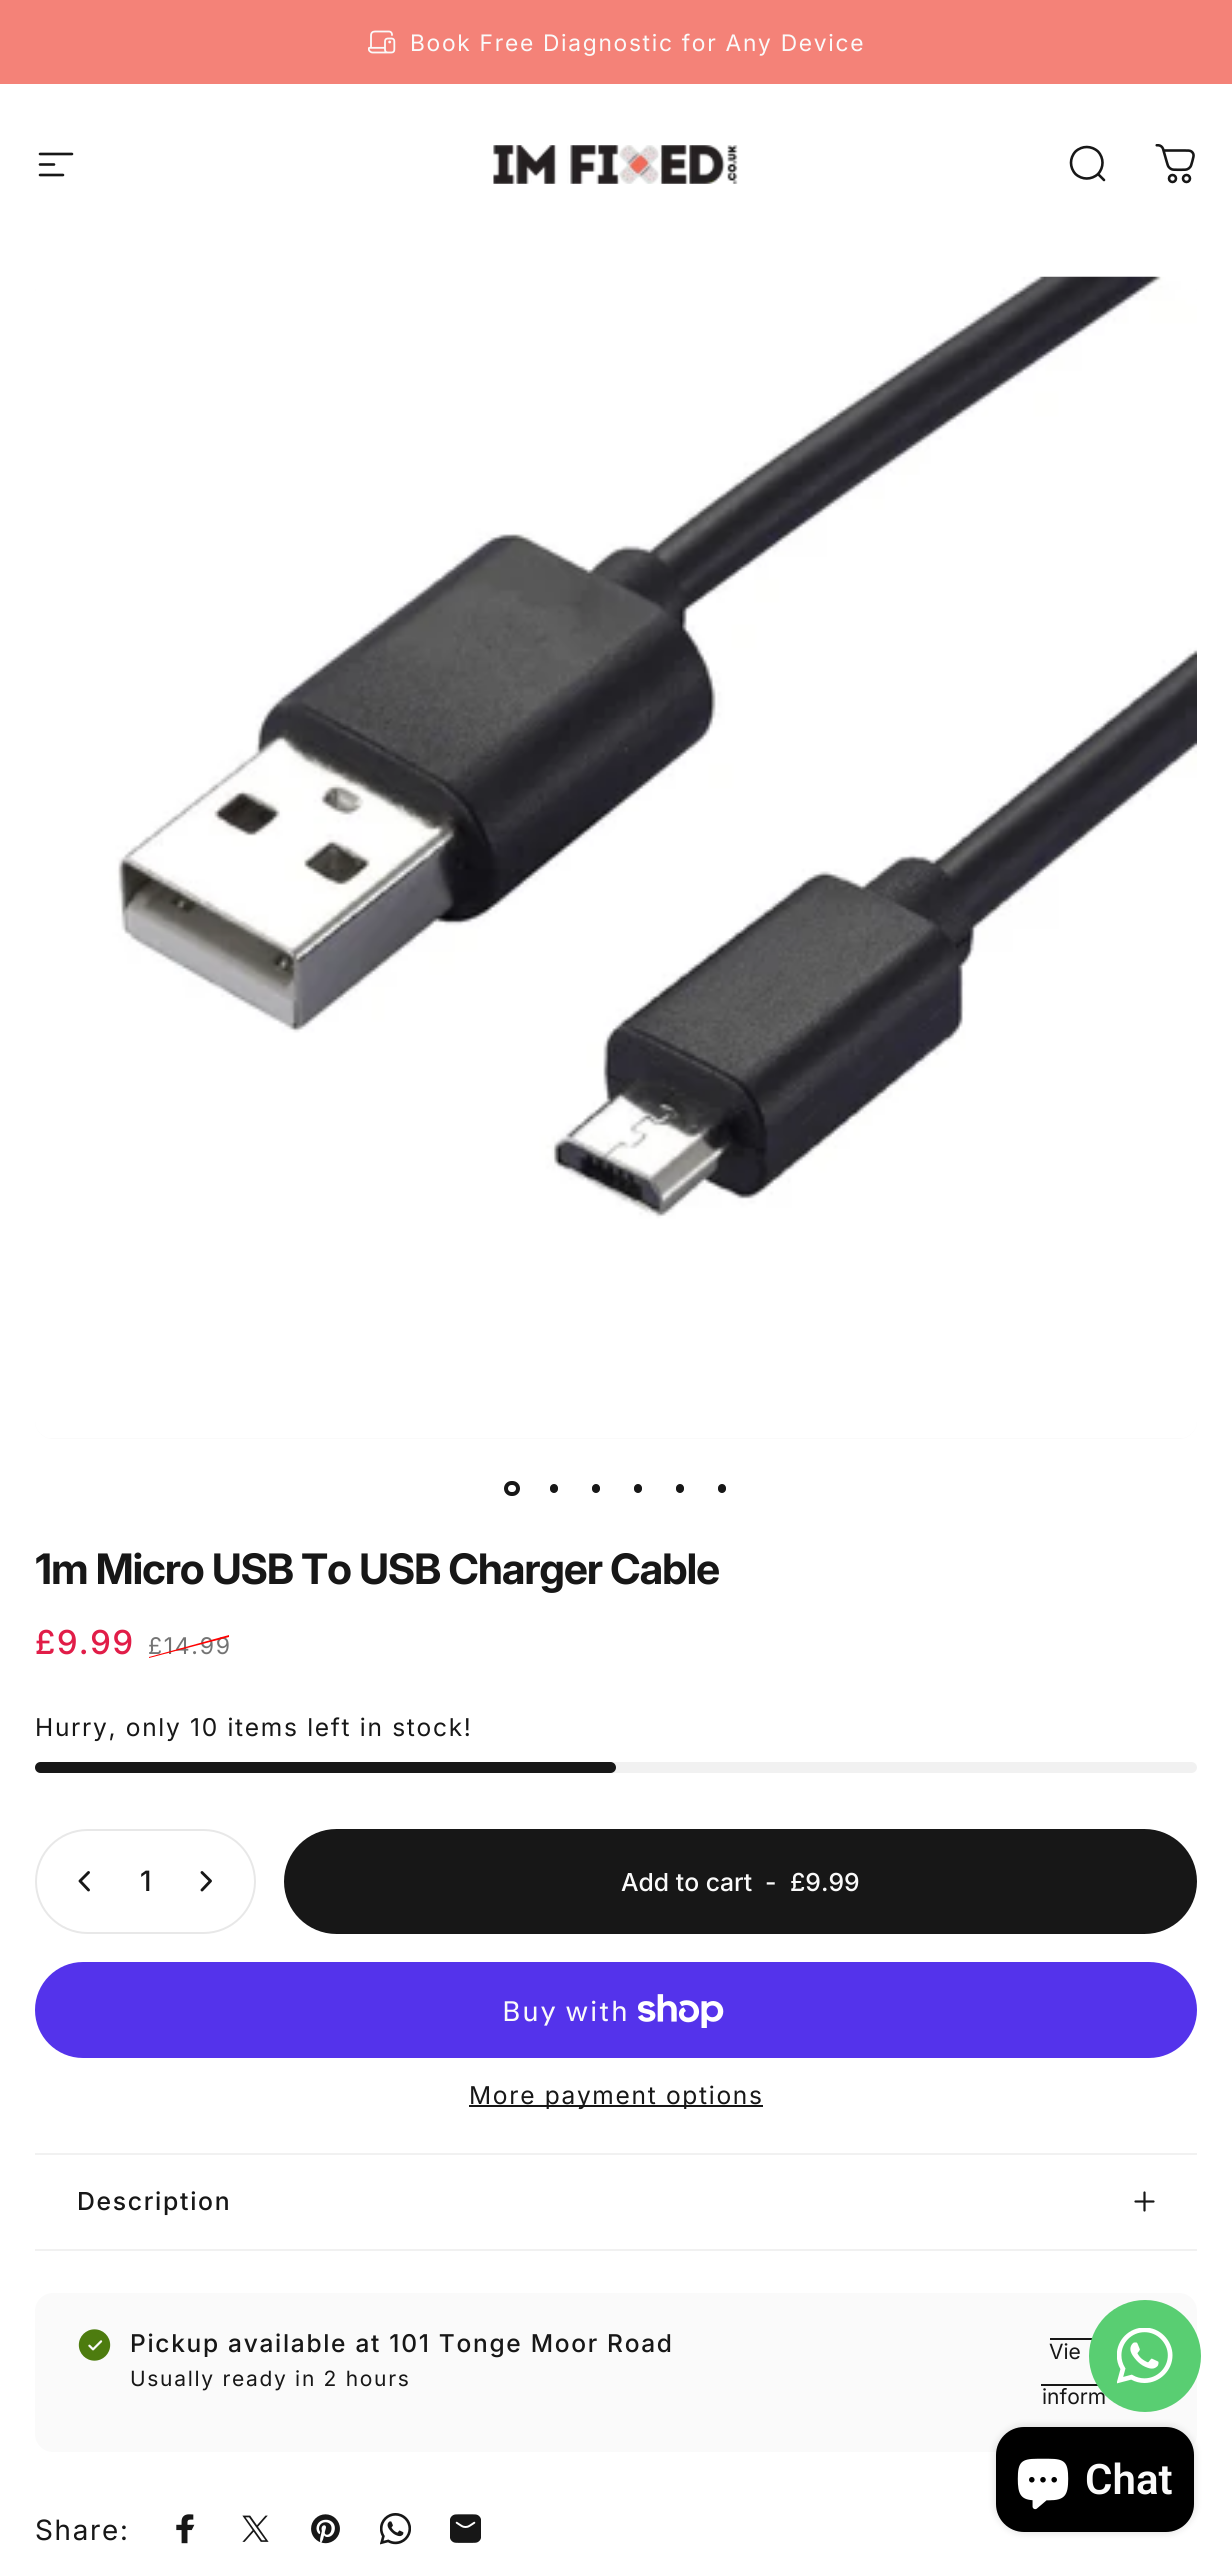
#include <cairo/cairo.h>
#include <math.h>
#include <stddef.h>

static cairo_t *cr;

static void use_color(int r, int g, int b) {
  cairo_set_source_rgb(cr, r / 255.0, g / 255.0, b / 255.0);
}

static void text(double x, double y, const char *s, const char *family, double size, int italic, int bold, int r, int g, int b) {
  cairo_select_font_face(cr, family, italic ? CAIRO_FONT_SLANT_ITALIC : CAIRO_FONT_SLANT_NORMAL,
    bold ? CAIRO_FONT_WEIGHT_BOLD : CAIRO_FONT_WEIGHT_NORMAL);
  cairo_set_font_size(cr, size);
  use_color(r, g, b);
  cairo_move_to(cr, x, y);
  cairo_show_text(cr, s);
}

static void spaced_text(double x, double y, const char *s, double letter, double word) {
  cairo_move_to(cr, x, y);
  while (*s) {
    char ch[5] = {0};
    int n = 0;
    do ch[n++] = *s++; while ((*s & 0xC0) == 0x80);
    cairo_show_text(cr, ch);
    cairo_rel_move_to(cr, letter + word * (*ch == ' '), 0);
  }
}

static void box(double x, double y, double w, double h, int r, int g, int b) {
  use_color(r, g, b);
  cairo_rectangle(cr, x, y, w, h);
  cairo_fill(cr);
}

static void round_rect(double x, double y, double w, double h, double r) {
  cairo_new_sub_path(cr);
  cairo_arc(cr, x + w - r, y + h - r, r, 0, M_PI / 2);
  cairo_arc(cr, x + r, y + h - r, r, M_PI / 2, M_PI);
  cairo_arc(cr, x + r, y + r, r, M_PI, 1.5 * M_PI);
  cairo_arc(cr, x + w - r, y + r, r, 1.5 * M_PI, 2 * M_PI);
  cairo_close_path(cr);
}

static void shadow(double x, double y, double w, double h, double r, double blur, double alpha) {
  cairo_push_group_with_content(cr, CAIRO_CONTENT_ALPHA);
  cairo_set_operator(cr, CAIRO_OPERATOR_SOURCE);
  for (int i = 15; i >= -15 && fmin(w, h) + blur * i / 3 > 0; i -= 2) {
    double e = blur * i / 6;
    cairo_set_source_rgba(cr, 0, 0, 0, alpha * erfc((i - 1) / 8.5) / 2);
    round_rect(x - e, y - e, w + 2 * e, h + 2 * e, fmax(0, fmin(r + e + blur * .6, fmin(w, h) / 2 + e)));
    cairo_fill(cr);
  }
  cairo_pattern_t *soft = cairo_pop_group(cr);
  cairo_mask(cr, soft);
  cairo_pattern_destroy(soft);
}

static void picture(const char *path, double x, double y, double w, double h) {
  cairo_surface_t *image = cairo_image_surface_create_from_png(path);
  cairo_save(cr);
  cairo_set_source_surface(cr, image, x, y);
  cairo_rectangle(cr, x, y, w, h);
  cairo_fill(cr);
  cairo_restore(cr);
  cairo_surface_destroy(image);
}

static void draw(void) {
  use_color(255, 255, 255);
  cairo_paint(cr);
  box(0, 0, 1232, 84, 244, 130, 120);
  picture("img_01.png", 368, 30, 28, 24);
  cairo_new_path(cr);
  cairo_move_to(cr, 40, 154);
  cairo_line_to(cr, 72, 154);
  cairo_move_to(cr, 40, 164.5);
  cairo_line_to(cr, 54, 164.5);
  cairo_move_to(cr, 40, 175);
  cairo_line_to(cr, 63, 175);
  use_color(23, 23, 23);
  cairo_set_line_width(cr, 2.6);
  cairo_set_line_cap(cr, CAIRO_LINE_CAP_ROUND);
  cairo_stroke(cr);
  picture("img_02.png", 493, 145, 245, 39);
  cairo_new_path(cr);
  cairo_move_to(cr, 1104, 180);
  cairo_line_to(cr, 1098, 174);
  cairo_move_to(cr, 1098, 174);
  cairo_curve_to(cr, 1104, 167.5, 1104, 158, 1098, 151.5);
  cairo_curve_to(cr, 1091.5, 145.5, 1082, 145.5, 1075.5, 151.5);
  cairo_curve_to(cr, 1069.5, 158, 1069.5, 167.5, 1075.5, 174);
  cairo_curve_to(cr, 1082, 180, 1091.5, 180, 1098, 174);
  cairo_close_path(cr);
  cairo_stroke(cr);
  picture("img_03.png", 1155, 144, 40, 40);
  use_color(250, 250, 250);
  round_rect(35, 277, 1162, 1162, 18);
  cairo_fill(cr);
  picture("img_04.png", 35, 276, 1162, 1162);
  round_rect(506, 1483, 12, 11, 5.5);
  use_color(23, 23, 23);
  cairo_set_line_width(cr, 4);
  cairo_set_line_cap(cr, CAIRO_LINE_CAP_BUTT);
  cairo_stroke(cr);
  round_rect(550, 1484, 8, 9, 4);
  cairo_fill(cr);
  round_rect(592, 1484, 8, 9, 4);
  cairo_fill(cr);
  round_rect(634, 1484, 8, 9, 4);
  cairo_fill(cr);
  round_rect(676, 1484, 8, 9, 4);
  cairo_fill(cr);
  round_rect(718, 1484, 8, 9, 4);
  cairo_fill(cr);
  use_color(241, 241, 241);
  round_rect(35, 1762, 1162, 11, 5.5);
  cairo_fill(cr);
  use_color(23, 23, 23);
  round_rect(35, 1762, 581, 11, 5.5);
  cairo_fill(cr);
  round_rect(36, 1830, 219, 103, 51.5);
  use_color(232, 232, 232);
  cairo_set_line_width(cr, 2);
  cairo_stroke(cr);
  cairo_new_path(cr);
  cairo_move_to(cr, 88.5, 1872.5);
  cairo_line_to(cr, 80, 1881);
  cairo_line_to(cr, 88.5, 1890);
  use_color(23, 23, 23);
  cairo_set_line_width(cr, 2.9);
  cairo_set_line_cap(cr, CAIRO_LINE_CAP_ROUND);
  cairo_set_line_join(cr, CAIRO_LINE_JOIN_ROUND);
  cairo_stroke(cr);
  cairo_new_path(cr);
  cairo_move_to(cr, 202, 1872.5);
  cairo_line_to(cr, 210.5, 1881);
  cairo_line_to(cr, 202, 1890);
  cairo_stroke(cr);
  round_rect(286, 1831, 909, 101, 50.5);
  cairo_fill_preserve(cr);
  cairo_set_line_width(cr, 4);
  cairo_set_line_cap(cr, CAIRO_LINE_CAP_BUTT);
  cairo_set_line_join(cr, CAIRO_LINE_JOIN_MITER);
  cairo_stroke(cr);
  use_color(84, 51, 235);
  round_rect(35, 1962, 1162, 96, 48);
  cairo_fill(cr);
  picture("img_05.png", 638, 1994, 86, 34);
  box(469, 2105, 294, 2, 23, 23, 23);
  box(35, 2153, 1162, 2, 241, 241, 241);
  box(35, 2249, 1162, 2, 241, 241, 241);
  cairo_new_path(cr);
  cairo_move_to(cr, 1144.5, 2192.5);
  cairo_line_to(cr, 1144.5, 2210.5);
  cairo_move_to(cr, 1153.5, 2201.5);
  cairo_line_to(cr, 1135.5, 2201.5);
  use_color(23, 23, 23);
  cairo_set_line_width(cr, 2.2);
  cairo_set_line_cap(cr, CAIRO_LINE_CAP_ROUND);
  cairo_set_line_join(cr, CAIRO_LINE_JOIN_ROUND);
  cairo_stroke(cr);
  use_color(250, 250, 250);
  round_rect(35, 2293, 1162, 159, 18);
  cairo_fill(cr);
  picture("img_06.png", 78, 2329, 33, 32);
  box(1050, 2338, 42, 2, 23, 23, 23);
  box(1041, 2384, 57, 2, 23, 23, 23);
  picture("img_07.png", 176, 2514, 19, 30);
  picture("img_08.png", 242, 2515, 27, 27);
  picture("img_09.png", 311, 2514, 29, 30);
  picture("img_10.png", 380, 2513, 31, 32);
  picture("img_11.png", 450, 2514, 31, 29);
  use_color(0, 0, 0);
  shadow(996, 2427, 198, 105, 28, 4.5, 0.15);
  use_color(0, 0, 0);
  round_rect(996, 2427, 198, 105, 28);
  cairo_fill(cr);
  picture("img_13.png", 1017, 2458, 52, 52);
  cairo_select_font_face(cr, "Inter", CAIRO_FONT_SLANT_NORMAL, CAIRO_FONT_WEIGHT_NORMAL);
  cairo_set_font_size(cr, 22.75);
  use_color(250, 250, 250);
  spaced_text(410, 51, "Book Free Diagnostic for Any Device", 1.7, 0);
  cairo_select_font_face(cr, "Inter", CAIRO_FONT_SLANT_NORMAL, CAIRO_FONT_WEIGHT_BOLD);
  cairo_set_font_size(cr, 42);
  use_color(23, 23, 23);
  spaced_text(35, 1584, "1m Micro USB To USB Charger Cable", -1.25, 0);
  cairo_select_font_face(cr, "Inter Medium", CAIRO_FONT_SLANT_NORMAL, CAIRO_FONT_WEIGHT_NORMAL);
  cairo_set_font_size(cr, 33);
  use_color(225, 29, 72);
  spaced_text(35, 1654, "£9.99", 1.7, 0);
  cairo_select_font_face(cr, "Inter", CAIRO_FONT_SLANT_NORMAL, CAIRO_FONT_WEIGHT_NORMAL);
  cairo_set_font_size(cr, 23);
  use_color(116, 116, 116);
  spaced_text(148, 1654, "£14.99", 1.7, 0);
  use_color(255, 0, 0);
  cairo_new_path(cr);
  cairo_move_to(cr, 149, 1657);
  cairo_line_to(cr, 229, 1635);
  cairo_line_to(cr, 229, 1637);
  cairo_line_to(cr, 149, 1658);
  cairo_close_path(cr);
  cairo_fill(cr);
  cairo_set_font_size(cr, 24.5);
  use_color(23, 23, 23);
  spaced_text(35, 1736, "Hurry, only 10 items left in stock!", 1.7, 0);
  text(140, 1891, "1", "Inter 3 Medium", 28, 0, 0, 23, 23, 23);
  text(621, 1891, "Add to cart", "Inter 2 Medium", 24.75, 0, 0, 250, 250, 250);
  text(765, 1891, "-", "Inter 2 Medium", 24.75, 0, 0, 250, 250, 250);
  text(790, 1891, "£9.99", "Inter 2 Medium", 24.75, 0, 0, 250, 250, 250);
  cairo_select_font_face(cr, "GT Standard", CAIRO_FONT_SLANT_NORMAL, CAIRO_FONT_WEIGHT_NORMAL);
  cairo_set_font_size(cr, 28);
  spaced_text(502, 2021, "Buy with", 1.7, 0);
  cairo_select_font_face(cr, "Inter", CAIRO_FONT_SLANT_NORMAL, CAIRO_FONT_WEIGHT_NORMAL);
  cairo_set_font_size(cr, 24.5);
  use_color(23, 23, 23);
  spaced_text(469, 2104, "More payment options", 1.7, 0);
  cairo_select_font_face(cr, "Inter 2 Medium", CAIRO_FONT_SLANT_NORMAL, CAIRO_FONT_WEIGHT_NORMAL);
  cairo_set_font_size(cr, 24.75);
  spaced_text(77, 2210, "Description", 1.7, 0);
  cairo_set_font_size(cr, 24.5);
  spaced_text(130, 2352, "Pickup available at 101 Tonge Moor Road", 1.7, 0);
  cairo_select_font_face(cr, "Inter", CAIRO_FONT_SLANT_NORMAL, CAIRO_FONT_WEIGHT_NORMAL);
  cairo_set_font_size(cr, 21);
  spaced_text(130, 2386, "Usually ready in 2 hours", 1.7, 0);
  text(1049, 2359, "Vie", "Inter", 21, 0, 0, 23, 23, 23);
  text(1042, 2404, "inform", "Inter", 21, 0, 0, 23, 23, 23);
  cairo_select_font_face(cr, "Inter 2", CAIRO_FONT_SLANT_NORMAL, CAIRO_FONT_WEIGHT_NORMAL);
  cairo_set_font_size(cr, 28);
  spaced_text(35, 2540, "Share:", 1.7, 0);
  use_color(89, 206, 114);
  cairo_new_path(cr);
  cairo_arc(cr, 1145, 2356, 56, 0, 2 * M_PI);
  cairo_fill(cr);
  picture("img_12.png", 1117, 2328, 56, 56);
  text(1085, 2494, "Chat", "Roboto SemiBold", 42, 0, 0, 250, 250, 250);
}

int main(void) {
  cairo_surface_t *surface = cairo_image_surface_create(CAIRO_FORMAT_RGB24, 1232, 2568);
  cr = cairo_create(surface);
  cairo_font_options_t *options = cairo_font_options_create();
  cairo_font_options_set_hint_metrics(options, CAIRO_HINT_METRICS_OFF);
  cairo_font_options_set_hint_style(options, CAIRO_HINT_STYLE_NONE);
  cairo_set_font_options(cr, options);
  cairo_set_miter_limit(cr, 4);
  draw();
  cairo_surface_write_to_png(surface, "out.png");
  cairo_font_options_destroy(options);
  cairo_destroy(cr);
  cairo_surface_destroy(surface);
  return 0;
}
